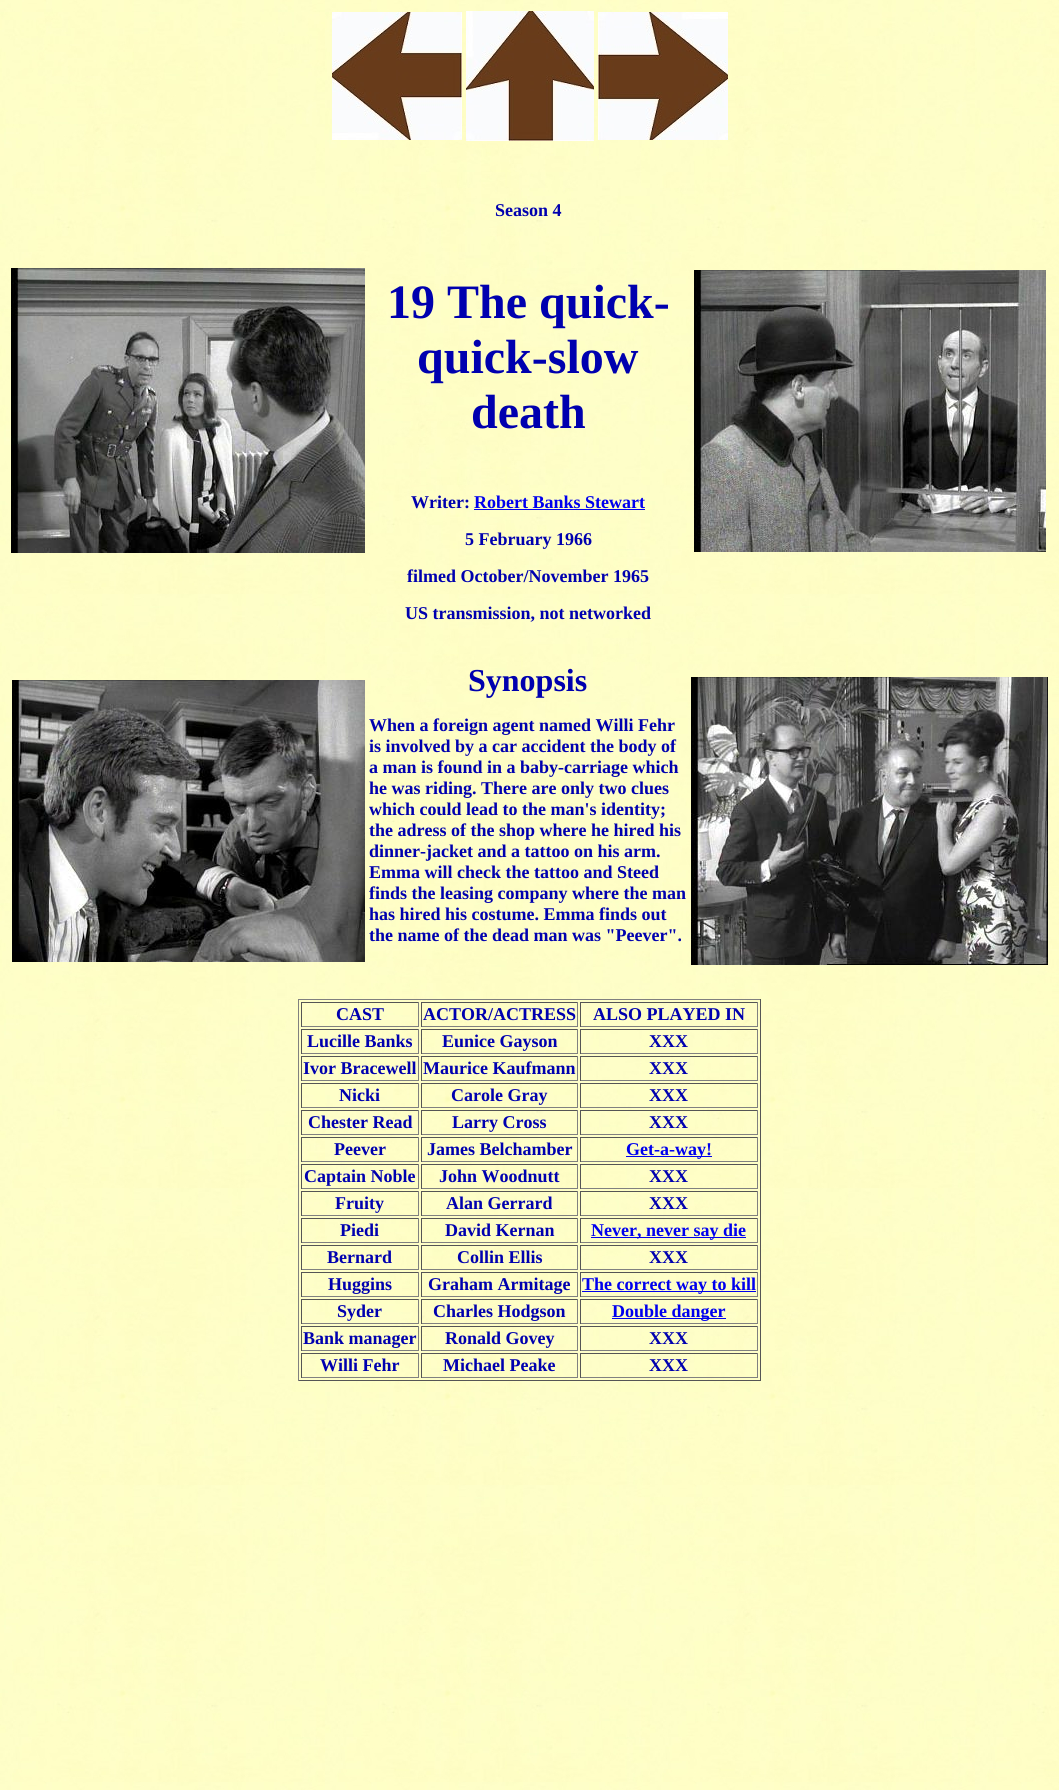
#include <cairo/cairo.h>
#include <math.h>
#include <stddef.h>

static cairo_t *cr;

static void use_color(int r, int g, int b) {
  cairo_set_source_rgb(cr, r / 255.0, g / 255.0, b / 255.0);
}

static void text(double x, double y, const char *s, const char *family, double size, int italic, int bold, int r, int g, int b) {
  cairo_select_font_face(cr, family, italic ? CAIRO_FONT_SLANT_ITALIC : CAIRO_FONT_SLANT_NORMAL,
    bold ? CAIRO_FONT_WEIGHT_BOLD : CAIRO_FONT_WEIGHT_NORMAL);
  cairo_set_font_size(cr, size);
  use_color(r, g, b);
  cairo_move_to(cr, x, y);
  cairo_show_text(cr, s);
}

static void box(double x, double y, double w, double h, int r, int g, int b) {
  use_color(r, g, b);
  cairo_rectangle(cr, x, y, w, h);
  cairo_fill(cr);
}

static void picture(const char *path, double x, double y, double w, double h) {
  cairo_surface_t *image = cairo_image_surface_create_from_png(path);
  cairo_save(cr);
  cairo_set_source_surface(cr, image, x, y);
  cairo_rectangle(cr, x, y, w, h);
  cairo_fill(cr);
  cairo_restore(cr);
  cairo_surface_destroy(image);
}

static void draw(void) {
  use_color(255, 255, 255);
  cairo_paint(cr);
  picture("img_01.png", 0, 0, 1059, 1790);
  picture("img_02.png", 332, 12, 130, 128);
  picture("img_03.png", 466, 11, 128, 130);
  picture("img_04.png", 598, 12, 130, 128);
  picture("img_05.png", 11, 268, 354, 285);
  box(474, 509, 171, 1, 0, 0, 238);
  picture("img_06.png", 694, 270, 352, 282);
  picture("img_07.png", 12, 680, 353, 282);
  picture("img_08.png", 691, 677, 357, 288);
  box(298, 999, 463, 1, 128, 128, 128);
  box(760, 999, 1, 382, 85, 85, 85);
  box(298, 1380, 463, 1, 85, 85, 85);
  box(298, 999, 1, 382, 128, 128, 128);
  box(301, 1002, 118, 1, 85, 85, 85);
  box(418, 1002, 1, 25, 128, 128, 128);
  box(301, 1026, 118, 1, 128, 128, 128);
  box(301, 1002, 1, 25, 85, 85, 85);
  box(421, 1002, 157, 1, 85, 85, 85);
  box(577, 1002, 1, 25, 128, 128, 128);
  box(421, 1026, 157, 1, 128, 128, 128);
  box(421, 1002, 1, 25, 85, 85, 85);
  box(580, 1002, 178, 1, 85, 85, 85);
  box(757, 1002, 1, 25, 128, 128, 128);
  box(580, 1026, 178, 1, 128, 128, 128);
  box(580, 1002, 1, 25, 85, 85, 85);
  box(301, 1029, 118, 1, 85, 85, 85);
  box(418, 1029, 1, 25, 128, 128, 128);
  box(301, 1053, 118, 1, 128, 128, 128);
  box(301, 1029, 1, 25, 85, 85, 85);
  box(421, 1029, 157, 1, 85, 85, 85);
  box(577, 1029, 1, 25, 128, 128, 128);
  box(421, 1053, 157, 1, 128, 128, 128);
  box(421, 1029, 1, 25, 85, 85, 85);
  box(580, 1029, 178, 1, 85, 85, 85);
  box(757, 1029, 1, 25, 128, 128, 128);
  box(580, 1053, 178, 1, 128, 128, 128);
  box(580, 1029, 1, 25, 85, 85, 85);
  box(301, 1056, 118, 1, 85, 85, 85);
  box(418, 1056, 1, 25, 128, 128, 128);
  box(301, 1080, 118, 1, 128, 128, 128);
  box(301, 1056, 1, 25, 85, 85, 85);
  box(421, 1056, 157, 1, 85, 85, 85);
  box(577, 1056, 1, 25, 128, 128, 128);
  box(421, 1080, 157, 1, 128, 128, 128);
  box(421, 1056, 1, 25, 85, 85, 85);
  box(580, 1056, 178, 1, 85, 85, 85);
  box(757, 1056, 1, 25, 128, 128, 128);
  box(580, 1080, 178, 1, 128, 128, 128);
  box(580, 1056, 1, 25, 85, 85, 85);
  box(301, 1083, 118, 1, 85, 85, 85);
  box(418, 1083, 1, 25, 128, 128, 128);
  box(301, 1107, 118, 1, 128, 128, 128);
  box(301, 1083, 1, 25, 85, 85, 85);
  box(421, 1083, 157, 1, 85, 85, 85);
  box(577, 1083, 1, 25, 128, 128, 128);
  box(421, 1107, 157, 1, 128, 128, 128);
  box(421, 1083, 1, 25, 85, 85, 85);
  box(580, 1083, 178, 1, 85, 85, 85);
  box(757, 1083, 1, 25, 128, 128, 128);
  box(580, 1107, 178, 1, 128, 128, 128);
  box(580, 1083, 1, 25, 85, 85, 85);
  box(301, 1110, 118, 1, 85, 85, 85);
  box(418, 1110, 1, 25, 128, 128, 128);
  box(301, 1134, 118, 1, 128, 128, 128);
  box(301, 1110, 1, 25, 85, 85, 85);
  box(421, 1110, 157, 1, 85, 85, 85);
  box(577, 1110, 1, 25, 128, 128, 128);
  box(421, 1134, 157, 1, 128, 128, 128);
  box(421, 1110, 1, 25, 85, 85, 85);
  box(580, 1110, 178, 1, 85, 85, 85);
  box(757, 1110, 1, 25, 128, 128, 128);
  box(580, 1134, 178, 1, 128, 128, 128);
  box(580, 1110, 1, 25, 85, 85, 85);
  box(301, 1137, 118, 1, 85, 85, 85);
  box(418, 1137, 1, 25, 128, 128, 128);
  box(301, 1161, 118, 1, 128, 128, 128);
  box(301, 1137, 1, 25, 85, 85, 85);
  box(421, 1137, 157, 1, 85, 85, 85);
  box(577, 1137, 1, 25, 128, 128, 128);
  box(421, 1161, 157, 1, 128, 128, 128);
  box(421, 1137, 1, 25, 85, 85, 85);
  box(580, 1137, 178, 1, 85, 85, 85);
  box(757, 1137, 1, 25, 128, 128, 128);
  box(580, 1161, 178, 1, 128, 128, 128);
  box(580, 1137, 1, 25, 85, 85, 85);
  box(626, 1156, 86, 1, 0, 0, 238);
  box(301, 1164, 118, 1, 85, 85, 85);
  box(418, 1164, 1, 25, 128, 128, 128);
  box(301, 1188, 118, 1, 128, 128, 128);
  box(301, 1164, 1, 25, 85, 85, 85);
  box(421, 1164, 157, 1, 85, 85, 85);
  box(577, 1164, 1, 25, 128, 128, 128);
  box(421, 1188, 157, 1, 128, 128, 128);
  box(421, 1164, 1, 25, 85, 85, 85);
  box(580, 1164, 178, 1, 85, 85, 85);
  box(757, 1164, 1, 25, 128, 128, 128);
  box(580, 1188, 178, 1, 128, 128, 128);
  box(580, 1164, 1, 25, 85, 85, 85);
  box(301, 1191, 118, 1, 85, 85, 85);
  box(418, 1191, 1, 25, 128, 128, 128);
  box(301, 1215, 118, 1, 128, 128, 128);
  box(301, 1191, 1, 25, 85, 85, 85);
  box(421, 1191, 157, 1, 85, 85, 85);
  box(577, 1191, 1, 25, 128, 128, 128);
  box(421, 1215, 157, 1, 128, 128, 128);
  box(421, 1191, 1, 25, 85, 85, 85);
  box(580, 1191, 178, 1, 85, 85, 85);
  box(757, 1191, 1, 25, 128, 128, 128);
  box(580, 1215, 178, 1, 128, 128, 128);
  box(580, 1191, 1, 25, 85, 85, 85);
  box(301, 1218, 118, 1, 85, 85, 85);
  box(418, 1218, 1, 25, 128, 128, 128);
  box(301, 1242, 118, 1, 128, 128, 128);
  box(301, 1218, 1, 25, 85, 85, 85);
  box(421, 1218, 157, 1, 85, 85, 85);
  box(577, 1218, 1, 25, 128, 128, 128);
  box(421, 1242, 157, 1, 128, 128, 128);
  box(421, 1218, 1, 25, 85, 85, 85);
  box(580, 1218, 178, 1, 85, 85, 85);
  box(757, 1218, 1, 25, 128, 128, 128);
  box(580, 1242, 178, 1, 128, 128, 128);
  box(580, 1218, 1, 25, 85, 85, 85);
  box(591, 1237, 155, 1, 0, 0, 238);
  box(301, 1245, 118, 1, 85, 85, 85);
  box(418, 1245, 1, 25, 128, 128, 128);
  box(301, 1269, 118, 1, 128, 128, 128);
  box(301, 1245, 1, 25, 85, 85, 85);
  box(421, 1245, 157, 1, 85, 85, 85);
  box(577, 1245, 1, 25, 128, 128, 128);
  box(421, 1269, 157, 1, 128, 128, 128);
  box(421, 1245, 1, 25, 85, 85, 85);
  box(580, 1245, 178, 1, 85, 85, 85);
  box(757, 1245, 1, 25, 128, 128, 128);
  box(580, 1269, 178, 1, 128, 128, 128);
  box(580, 1245, 1, 25, 85, 85, 85);
  box(301, 1272, 118, 1, 85, 85, 85);
  box(418, 1272, 1, 25, 128, 128, 128);
  box(301, 1296, 118, 1, 128, 128, 128);
  box(301, 1272, 1, 25, 85, 85, 85);
  box(421, 1272, 157, 1, 85, 85, 85);
  box(577, 1272, 1, 25, 128, 128, 128);
  box(421, 1296, 157, 1, 128, 128, 128);
  box(421, 1272, 1, 25, 85, 85, 85);
  box(580, 1272, 178, 1, 85, 85, 85);
  box(757, 1272, 1, 25, 128, 128, 128);
  box(580, 1296, 178, 1, 128, 128, 128);
  box(580, 1272, 1, 25, 85, 85, 85);
  box(582, 1291, 174, 1, 0, 0, 238);
  box(301, 1299, 118, 1, 85, 85, 85);
  box(418, 1299, 1, 25, 128, 128, 128);
  box(301, 1323, 118, 1, 128, 128, 128);
  box(301, 1299, 1, 25, 85, 85, 85);
  box(421, 1299, 157, 1, 85, 85, 85);
  box(577, 1299, 1, 25, 128, 128, 128);
  box(421, 1323, 157, 1, 128, 128, 128);
  box(421, 1299, 1, 25, 85, 85, 85);
  box(580, 1299, 178, 1, 85, 85, 85);
  box(757, 1299, 1, 25, 128, 128, 128);
  box(580, 1323, 178, 1, 128, 128, 128);
  box(580, 1299, 1, 25, 85, 85, 85);
  box(612, 1318, 114, 1, 0, 0, 238);
  box(301, 1326, 118, 1, 85, 85, 85);
  box(418, 1326, 1, 25, 128, 128, 128);
  box(301, 1350, 118, 1, 128, 128, 128);
  box(301, 1326, 1, 25, 85, 85, 85);
  box(421, 1326, 157, 1, 85, 85, 85);
  box(577, 1326, 1, 25, 128, 128, 128);
  box(421, 1350, 157, 1, 128, 128, 128);
  box(421, 1326, 1, 25, 85, 85, 85);
  box(580, 1326, 178, 1, 85, 85, 85);
  box(757, 1326, 1, 25, 128, 128, 128);
  box(580, 1350, 178, 1, 128, 128, 128);
  box(580, 1326, 1, 25, 85, 85, 85);
  box(301, 1353, 118, 1, 85, 85, 85);
  box(418, 1353, 1, 25, 128, 128, 128);
  box(301, 1377, 118, 1, 128, 128, 128);
  box(301, 1353, 1, 25, 85, 85, 85);
  box(421, 1353, 157, 1, 85, 85, 85);
  box(577, 1353, 1, 25, 128, 128, 128);
  box(421, 1377, 157, 1, 128, 128, 128);
  box(421, 1353, 1, 25, 85, 85, 85);
  box(580, 1353, 178, 1, 85, 85, 85);
  box(757, 1353, 1, 25, 128, 128, 128);
  box(580, 1377, 178, 1, 128, 128, 128);
  box(580, 1353, 1, 25, 85, 85, 85);
  text(495, 216, "Season 4", "Liberation Serif", 18, 0, 1, 0, 0, 175);
  text(387, 318, "19 The quick-", "Liberation Serif", 48, 0, 1, 0, 0, 175);
  text(417, 373, "quick-slow", "Liberation Serif", 48, 0, 1, 0, 0, 175);
  text(471, 428, "death", "Liberation Serif", 48, 0, 1, 0, 0, 175);
  text(411, 508, "Writer:", "Liberation Serif", 18, 0, 1, 0, 0, 175);
  text(474, 508, "Robert Banks Stewart", "Liberation Serif", 18, 0, 1, 0, 0, 238);
  text(465, 545, "5 February 1966", "Liberation Serif", 18, 0, 1, 0, 0, 175);
  text(407, 582, "filmed October/November 1965", "Liberation Serif", 18, 0, 1, 0, 0, 175);
  text(405, 619, "US transmission, not networked", "Liberation Serif", 18, 0, 1, 0, 0, 175);
  text(468, 691, "Synopsis", "Liberation Serif", 32, 0, 1, 0, 0, 175);
  text(369, 731, "When a foreign agent named Willi Fehr", "Liberation Serif", 18, 0, 1, 0, 0, 175);
  text(369, 752, "is involved by a car accident the body of", "Liberation Serif", 18, 0, 1, 0, 0, 175);
  text(369, 773, "a man is found in a baby-carriage which", "Liberation Serif", 18, 0, 1, 0, 0, 175);
  text(369, 794, "he was riding. There are only two clues", "Liberation Serif", 18, 0, 1, 0, 0, 175);
  text(369, 815, "which could lead to the man's identity;", "Liberation Serif", 18, 0, 1, 0, 0, 175);
  text(369, 836, "the adress of the shop where he hired his", "Liberation Serif", 18, 0, 1, 0, 0, 175);
  text(369, 857, "dinner-jacket and a tattoo on his arm.", "Liberation Serif", 18, 0, 1, 0, 0, 175);
  text(369, 878, "Emma will check the tattoo and Steed", "Liberation Serif", 18, 0, 1, 0, 0, 175);
  text(369, 899, "finds the leasing company where the man", "Liberation Serif", 18, 0, 1, 0, 0, 175);
  text(369, 920, "has hired his costume. Emma finds out", "Liberation Serif", 18, 0, 1, 0, 0, 175);
  text(369, 941, "the name of the dead man was \"Peever\".", "Liberation Serif", 18, 0, 1, 0, 0, 175);
  text(336, 1020, "CAST", "Liberation Serif", 18, 0, 1, 0, 0, 175);
  text(423, 1020, "ACTOR/ACTRESS", "Liberation Serif", 18, 0, 1, 0, 0, 175);
  text(593, 1020, "ALSO PLAYED IN", "Liberation Serif", 18, 0, 1, 0, 0, 175);
  text(307, 1047, "Lucille Banks", "Liberation Serif", 18, 0, 1, 0, 0, 175);
  text(442, 1047, "Eunice Gayson", "Liberation Serif", 18, 0, 1, 0, 0, 175);
  text(649, 1047, "XXX", "Liberation Serif", 18, 0, 1, 0, 0, 175);
  text(303, 1074, "Ivor Bracewell", "Liberation Serif", 18, 0, 1, 0, 0, 175);
  text(423, 1074, "Maurice Kaufmann", "Liberation Serif", 18, 0, 1, 0, 0, 175);
  text(649, 1074, "XXX", "Liberation Serif", 18, 0, 1, 0, 0, 175);
  text(339, 1101, "Nicki", "Liberation Serif", 18, 0, 1, 0, 0, 175);
  text(451, 1101, "Carole Gray", "Liberation Serif", 18, 0, 1, 0, 0, 175);
  text(649, 1101, "XXX", "Liberation Serif", 18, 0, 1, 0, 0, 175);
  text(308, 1128, "Chester Read", "Liberation Serif", 18, 0, 1, 0, 0, 175);
  text(452, 1128, "Larry Cross", "Liberation Serif", 18, 0, 1, 0, 0, 175);
  text(649, 1128, "XXX", "Liberation Serif", 18, 0, 1, 0, 0, 175);
  text(334, 1155, "Peever", "Liberation Serif", 18, 0, 1, 0, 0, 175);
  text(427, 1155, "James Belchamber", "Liberation Serif", 18, 0, 1, 0, 0, 175);
  text(626, 1155, "Get-a-way!", "Liberation Serif", 18, 0, 1, 0, 0, 238);
  text(304, 1182, "Captain Noble", "Liberation Serif", 18, 0, 1, 0, 0, 175);
  text(439, 1182, "John Woodnutt", "Liberation Serif", 18, 0, 1, 0, 0, 175);
  text(649, 1182, "XXX", "Liberation Serif", 18, 0, 1, 0, 0, 175);
  text(335, 1209, "Fruity", "Liberation Serif", 18, 0, 1, 0, 0, 175);
  text(446, 1209, "Alan Gerrard", "Liberation Serif", 18, 0, 1, 0, 0, 175);
  text(649, 1209, "XXX", "Liberation Serif", 18, 0, 1, 0, 0, 175);
  text(340, 1236, "Piedi", "Liberation Serif", 18, 0, 1, 0, 0, 175);
  text(445, 1236, "David Kernan", "Liberation Serif", 18, 0, 1, 0, 0, 175);
  text(591, 1236, "Never, never say die", "Liberation Serif", 18, 0, 1, 0, 0, 238);
  text(327, 1263, "Bernard", "Liberation Serif", 18, 0, 1, 0, 0, 175);
  text(457, 1263, "Collin Ellis", "Liberation Serif", 18, 0, 1, 0, 0, 175);
  text(649, 1263, "XXX", "Liberation Serif", 18, 0, 1, 0, 0, 175);
  text(328, 1290, "Huggins", "Liberation Serif", 18, 0, 1, 0, 0, 175);
  text(428, 1290, "Graham Armitage", "Liberation Serif", 18, 0, 1, 0, 0, 175);
  text(582, 1290, "The correct way to kill", "Liberation Serif", 18, 0, 1, 0, 0, 238);
  text(337, 1317, "Syder", "Liberation Serif", 18, 0, 1, 0, 0, 175);
  text(433, 1317, "Charles Hodgson", "Liberation Serif", 18, 0, 1, 0, 0, 175);
  text(612, 1317, "Double danger", "Liberation Serif", 18, 0, 1, 0, 0, 238);
  text(303, 1344, "Bank manager", "Liberation Serif", 18, 0, 1, 0, 0, 175);
  text(445, 1344, "Ronald Govey", "Liberation Serif", 18, 0, 1, 0, 0, 175);
  text(649, 1344, "XXX", "Liberation Serif", 18, 0, 1, 0, 0, 175);
  text(320, 1371, "Willi Fehr", "Liberation Serif", 18, 0, 1, 0, 0, 175);
  text(443, 1371, "Michael Peake", "Liberation Serif", 18, 0, 1, 0, 0, 175);
  text(649, 1371, "XXX", "Liberation Serif", 18, 0, 1, 0, 0, 175);
}

int main(void) {
  cairo_surface_t *surface = cairo_image_surface_create(CAIRO_FORMAT_RGB24, 1059, 1790);
  cr = cairo_create(surface);
  cairo_font_options_t *options = cairo_font_options_create();
  cairo_font_options_set_hint_metrics(options, CAIRO_HINT_METRICS_OFF);
  cairo_font_options_set_hint_style(options, CAIRO_HINT_STYLE_NONE);
  cairo_set_font_options(cr, options);
  cairo_set_miter_limit(cr, 4);
  draw();
  cairo_surface_write_to_png(surface, "out.png");
  cairo_font_options_destroy(options);
  cairo_destroy(cr);
  cairo_surface_destroy(surface);
  return 0;
}
